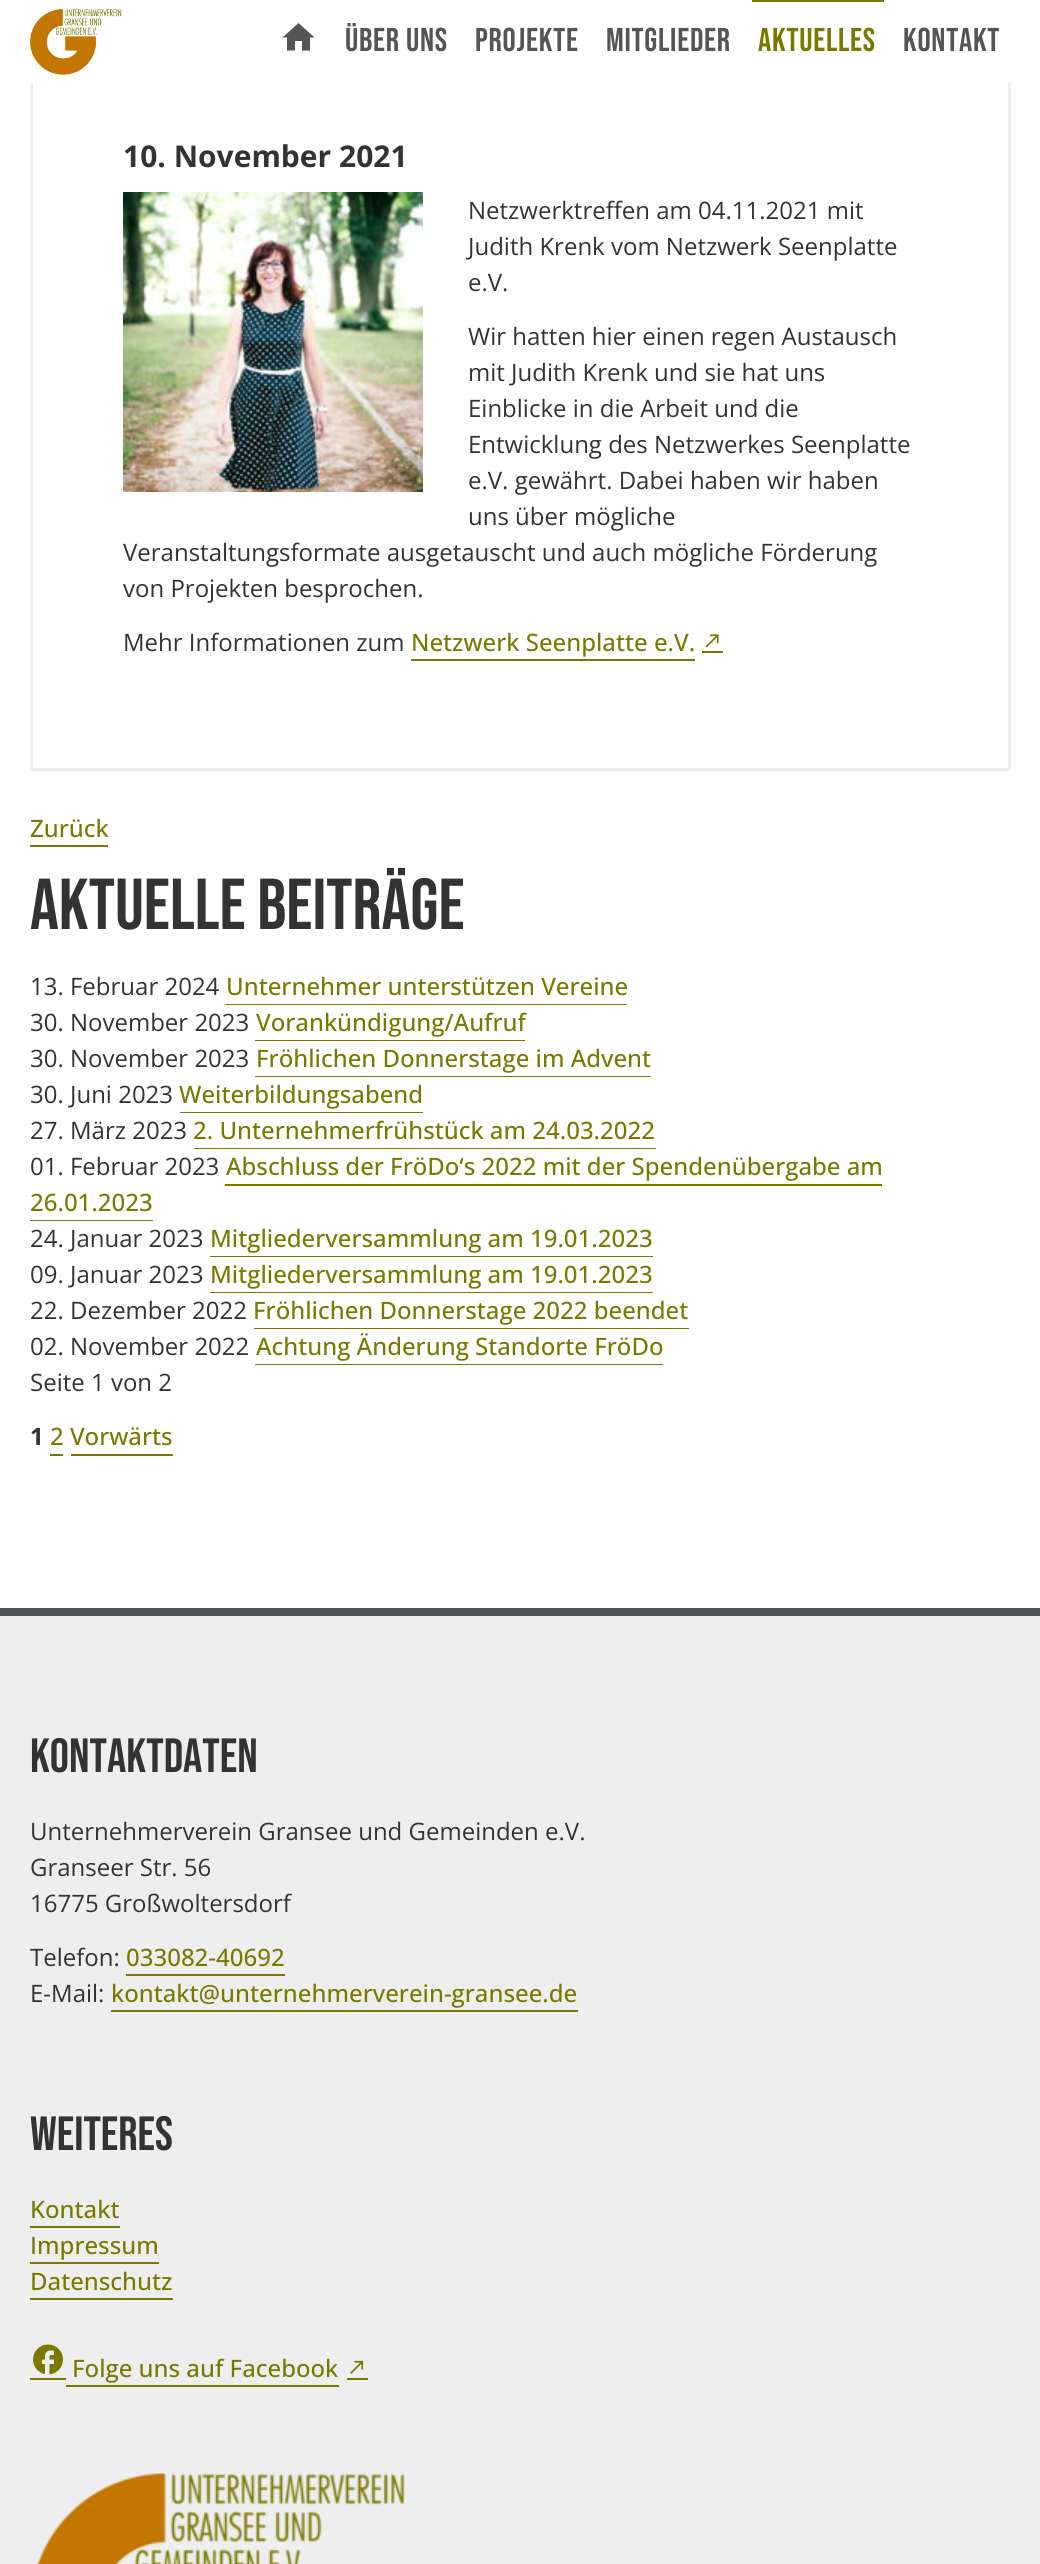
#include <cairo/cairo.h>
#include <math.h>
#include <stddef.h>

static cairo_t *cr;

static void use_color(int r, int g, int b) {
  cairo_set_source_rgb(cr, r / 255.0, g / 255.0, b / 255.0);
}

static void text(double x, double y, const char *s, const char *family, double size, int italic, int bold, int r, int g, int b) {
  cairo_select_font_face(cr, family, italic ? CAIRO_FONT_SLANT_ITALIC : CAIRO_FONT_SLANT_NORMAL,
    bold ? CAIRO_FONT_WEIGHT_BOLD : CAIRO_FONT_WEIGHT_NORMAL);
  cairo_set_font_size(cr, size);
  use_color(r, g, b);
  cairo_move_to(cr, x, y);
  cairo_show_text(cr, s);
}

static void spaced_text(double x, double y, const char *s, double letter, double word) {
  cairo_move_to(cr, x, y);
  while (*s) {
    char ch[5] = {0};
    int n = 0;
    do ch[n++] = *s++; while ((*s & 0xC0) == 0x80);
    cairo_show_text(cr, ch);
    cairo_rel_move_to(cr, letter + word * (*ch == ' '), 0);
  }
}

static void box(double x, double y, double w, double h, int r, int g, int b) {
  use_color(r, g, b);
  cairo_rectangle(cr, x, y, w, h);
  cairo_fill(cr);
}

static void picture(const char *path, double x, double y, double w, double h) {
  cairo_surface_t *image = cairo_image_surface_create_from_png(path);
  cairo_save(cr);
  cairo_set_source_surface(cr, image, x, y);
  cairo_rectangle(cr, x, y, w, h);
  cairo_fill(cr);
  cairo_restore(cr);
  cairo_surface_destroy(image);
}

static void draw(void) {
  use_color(255, 255, 255);
  cairo_paint(cr);
  cairo_rectangle(cr, 31.5, 46.5, 978, 723);
  use_color(238, 238, 238);
  cairo_set_line_width(cr, 3);
  cairo_stroke(cr);
  box(30, 45, 981, 38, 255, 255, 255);
  picture("img_01.png", 30, 9, 92, 66);
  use_color(85, 85, 85);
  cairo_new_path(cr);
  cairo_move_to(cr, 295, 50.5);
  cairo_line_to(cr, 287, 50.5);
  cairo_line_to(cr, 287, 37.5);
  cairo_line_to(cr, 282.5, 37.5);
  cairo_line_to(cr, 298.5, 23);
  cairo_line_to(cr, 314.5, 37.5);
  cairo_line_to(cr, 310, 37.5);
  cairo_line_to(cr, 310, 50.5);
  cairo_line_to(cr, 302, 50.5);
  cairo_line_to(cr, 302, 41);
  cairo_line_to(cr, 295, 41);
  cairo_close_path(cr);
  cairo_fill(cr);
  box(752, 0, 132, 2, 121, 121, 0);
  picture("img_02.png", 123, 192, 300, 300);
  box(411, 659, 284, 2, 121, 121, 0);
  box(702, 651, 21, 2, 121, 121, 0);
  picture("img_03.png", 705, 634, 14, 14);
  box(30, 845, 78, 2, 121, 121, 0);
  box(225, 1004, 402, 1, 121, 121, 0);
  box(255, 1040, 270, 1, 121, 121, 0);
  box(255, 1076, 396, 1, 121, 121, 0);
  box(180, 1112, 243, 1, 121, 121, 0);
  box(194, 1148, 462, 1, 121, 121, 0);
  box(225, 1184, 657, 2, 121, 121, 0);
  box(30, 1220, 123, 1, 121, 121, 0);
  box(210, 1256, 443, 1, 121, 121, 0);
  box(210, 1292, 443, 1, 121, 121, 0);
  box(254, 1328, 435, 1, 121, 121, 0);
  box(255, 1364, 408, 1, 121, 121, 0);
  box(50, 1454, 13, 2, 121, 121, 0);
  box(71, 1454, 102, 2, 121, 121, 0);
  box(0, 1616, 1040, 948, 238, 238, 238);
  box(0, 1608, 1040, 8, 78, 86, 90);
  box(126, 1974, 159, 2, 121, 121, 0);
  box(111, 2010, 467, 2, 121, 121, 0);
  box(30, 2226, 90, 2, 121, 121, 0);
  box(30, 2262, 129, 2, 121, 121, 0);
  box(30, 2298, 143, 2, 121, 121, 0);
  box(30, 2378, 36, 2, 121, 121, 0);
  box(66, 2385, 273, 2, 121, 121, 0);
  box(347, 2378, 21, 2, 121, 121, 0);
  picture("img_04.png", 33, 2344, 30, 31);
  picture("img_05.png", 350, 2360, 14, 14);
  picture("img_06.png", 37, 2473, 368, 91);
  cairo_select_font_face(cr, "Bebas Neue", CAIRO_FONT_SLANT_NORMAL, CAIRO_FONT_WEIGHT_NORMAL);
  cairo_set_font_size(cr, 33);
  use_color(85, 85, 85);
  spaced_text(345, 51, "Über uns", 0.75, 0);
  spaced_text(475, 51, "Projekte", 0.75, 0);
  spaced_text(606, 51, "Mitglieder", 0.75, 0);
  use_color(121, 121, 0);
  spaced_text(758, 51, "Aktuelles", 0.75, 0);
  use_color(85, 85, 85);
  spaced_text(903, 51, "Kontakt", 0.75, 0);
  text(123, 167, "10. November 2021", "Open Sans", 30, 0, 1, 51, 51, 51);
  text(468, 219, "Netzwerktreffen am 04.11.2021 mit", "Open Sans", 24, 0, 0, 51, 51, 51);
  text(468, 255, "Judith Krenk vom Netzwerk Seenplatte", "Open Sans", 24, 0, 0, 51, 51, 51);
  text(468, 291, "e.V.", "Open Sans", 24, 0, 0, 51, 51, 51);
  text(468, 345, "Wir hatten hier einen regen Austausch", "Open Sans", 24, 0, 0, 51, 51, 51);
  text(468, 381, "mit Judith Krenk und sie hat uns", "Open Sans", 24, 0, 0, 51, 51, 51);
  text(468, 417, "Einblicke in die Arbeit und die", "Open Sans", 24, 0, 0, 51, 51, 51);
  text(468, 453, "Entwicklung des Netzwerkes Seenplatte", "Open Sans", 24, 0, 0, 51, 51, 51);
  text(468, 489, "e.V. gewährt. Dabei haben wir haben", "Open Sans", 24, 0, 0, 51, 51, 51);
  text(468, 525, "uns über mögliche", "Open Sans", 24, 0, 0, 51, 51, 51);
  text(123, 561, "Veranstaltungsformate ausgetauscht und auch mögliche Förderung", "Open Sans", 24, 0, 0, 51, 51, 51);
  text(123, 597, "von Projekten besprochen.", "Open Sans", 24, 0, 0, 51, 51, 51);
  text(123, 651, "Mehr Informationen zum", "Open Sans", 24, 0, 0, 51, 51, 51);
  text(411, 651, "Netzwerk Seenplatte e.V.", "Open Sans Medium", 24, 0, 0, 121, 121, 0);
  text(30, 837, "Zurück", "Open Sans Medium", 24, 0, 0, 121, 121, 0);
  text(30, 929, "Aktuelle Beiträge", "Bebas Neue", 72, 0, 0, 51, 51, 51);
  text(30, 995, "13. Februar 2024", "Open Sans", 24, 0, 0, 51, 51, 51);
  text(226, 995, "Unternehmer unterstützen Vereine", "Open Sans Medium", 24, 0, 0, 121, 121, 0);
  text(30, 1031, "30. November 2023", "Open Sans", 24, 0, 0, 51, 51, 51);
  text(256, 1031, "Vorankündigung/Aufruf", "Open Sans Medium", 24, 0, 0, 121, 121, 0);
  text(30, 1067, "30. November 2023", "Open Sans", 24, 0, 0, 51, 51, 51);
  text(256, 1067, "Fröhlichen Donnerstage im Advent", "Open Sans Medium", 24, 0, 0, 121, 121, 0);
  text(30, 1103, "30. Juni 2023", "Open Sans", 24, 0, 0, 51, 51, 51);
  text(179, 1103, "Weiterbildungsabend", "Open Sans Medium", 24, 0, 0, 121, 121, 0);
  text(30, 1139, "27. März 2023", "Open Sans", 24, 0, 0, 51, 51, 51);
  text(193, 1139, "2. Unternehmerfrühstück am 24.03.2022", "Open Sans Medium", 24, 0, 0, 121, 121, 0);
  text(30, 1175, "01. Februar 2023", "Open Sans", 24, 0, 0, 51, 51, 51);
  text(226, 1175, "Abschluss der FröDo‘s 2022 mit der Spendenübergabe am", "Open Sans Medium", 24, 0, 0, 121, 121, 0);
  text(30, 1211, "26.01.2023", "Open Sans Medium", 24, 0, 0, 121, 121, 0);
  text(30, 1247, "24. Januar 2023", "Open Sans", 24, 0, 0, 51, 51, 51);
  text(210, 1247, "Mitgliederversammlung am 19.01.2023", "Open Sans Medium", 24, 0, 0, 121, 121, 0);
  text(30, 1283, "09. Januar 2023", "Open Sans", 24, 0, 0, 51, 51, 51);
  text(210, 1283, "Mitgliederversammlung am 19.01.2023", "Open Sans Medium", 24, 0, 0, 121, 121, 0);
  text(30, 1319, "22. Dezember 2022", "Open Sans", 24, 0, 0, 51, 51, 51);
  text(253, 1319, "Fröhlichen Donnerstage 2022 beendet", "Open Sans Medium", 24, 0, 0, 121, 121, 0);
  text(30, 1355, "02. November 2022", "Open Sans", 24, 0, 0, 51, 51, 51);
  text(256, 1355, "Achtung Änderung Standorte FröDo", "Open Sans Medium", 24, 0, 0, 121, 121, 0);
  text(30, 1391, "Seite 1 von 2", "Open Sans", 24, 0, 0, 51, 51, 51);
  text(30, 1445, "1", "Open Sans", 24, 0, 1, 51, 51, 51);
  text(50, 1445, "2 Vorwärts", "Open Sans Medium", 24, 0, 0, 121, 121, 0);
  text(30, 1772, "Kontaktdaten", "Bebas Neue", 48, 0, 0, 51, 51, 51);
  text(30, 1840, "Unternehmerverein Gransee und Gemeinden e.V.", "Open Sans", 24, 0, 0, 51, 51, 51);
  text(30, 1876, "Granseer Str. 56", "Open Sans", 24, 0, 0, 51, 51, 51);
  text(30, 1912, "16775 Großwoltersdorf", "Open Sans", 24, 0, 0, 51, 51, 51);
  text(30, 1966, "Telefon:", "Open Sans", 24, 0, 0, 51, 51, 51);
  text(126, 1966, "033082-40692", "Open Sans Medium", 24, 0, 0, 121, 121, 0);
  text(30, 2002, "E-Mail:", "Open Sans", 24, 0, 0, 51, 51, 51);
  text(111, 2002, "kontakt@unternehmerverein-gransee.de", "Open Sans Medium", 24, 0, 0, 121, 121, 0);
  text(30, 2150, "Weiteres", "Bebas Neue", 48, 0, 0, 51, 51, 51);
  text(30, 2218, "Kontakt", "Open Sans Medium", 24, 0, 0, 121, 121, 0);
  text(30, 2254, "Impressum", "Open Sans Medium", 24, 0, 0, 121, 121, 0);
  text(30, 2290, "Datenschutz", "Open Sans Medium", 24, 0, 0, 121, 121, 0);
  text(72, 2377, "Folge uns auf Facebook", "Open Sans Medium", 24, 0, 0, 121, 121, 0);
}

int main(void) {
  cairo_surface_t *surface = cairo_image_surface_create(CAIRO_FORMAT_RGB24, 1040, 2564);
  cr = cairo_create(surface);
  cairo_font_options_t *options = cairo_font_options_create();
  cairo_font_options_set_hint_metrics(options, CAIRO_HINT_METRICS_OFF);
  cairo_font_options_set_hint_style(options, CAIRO_HINT_STYLE_NONE);
  cairo_set_font_options(cr, options);
  cairo_set_miter_limit(cr, 4);
  draw();
  cairo_surface_write_to_png(surface, "out.png");
  cairo_font_options_destroy(options);
  cairo_destroy(cr);
  cairo_surface_destroy(surface);
  return 0;
}
